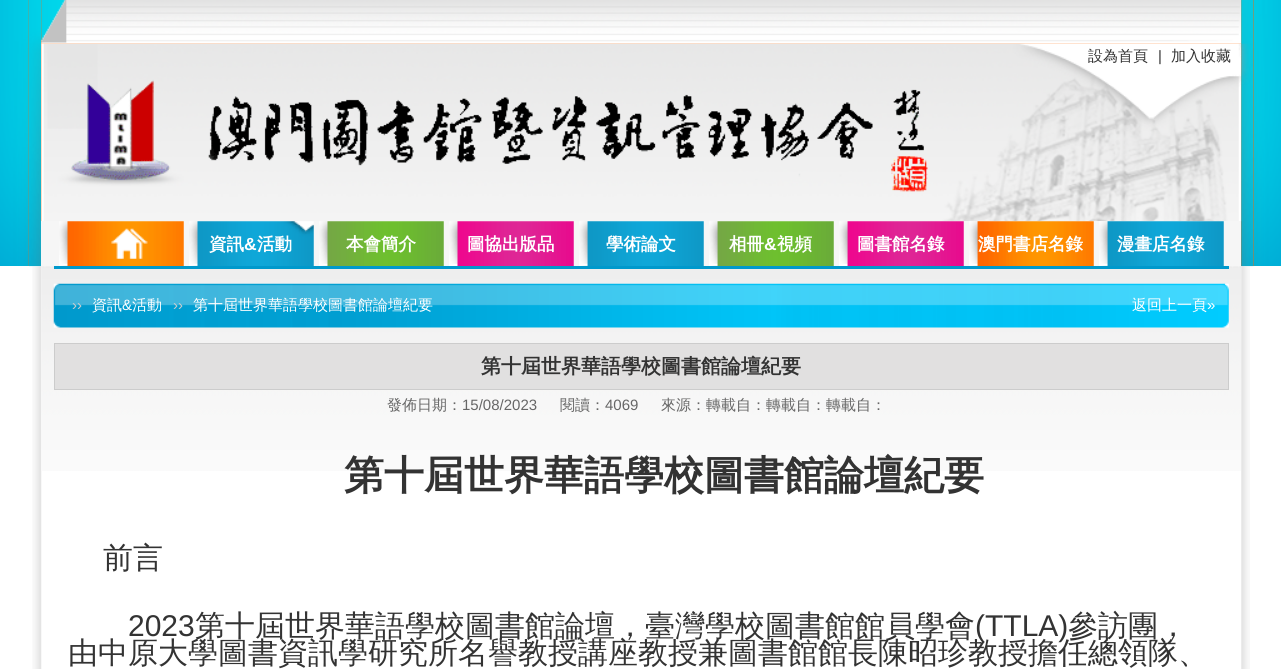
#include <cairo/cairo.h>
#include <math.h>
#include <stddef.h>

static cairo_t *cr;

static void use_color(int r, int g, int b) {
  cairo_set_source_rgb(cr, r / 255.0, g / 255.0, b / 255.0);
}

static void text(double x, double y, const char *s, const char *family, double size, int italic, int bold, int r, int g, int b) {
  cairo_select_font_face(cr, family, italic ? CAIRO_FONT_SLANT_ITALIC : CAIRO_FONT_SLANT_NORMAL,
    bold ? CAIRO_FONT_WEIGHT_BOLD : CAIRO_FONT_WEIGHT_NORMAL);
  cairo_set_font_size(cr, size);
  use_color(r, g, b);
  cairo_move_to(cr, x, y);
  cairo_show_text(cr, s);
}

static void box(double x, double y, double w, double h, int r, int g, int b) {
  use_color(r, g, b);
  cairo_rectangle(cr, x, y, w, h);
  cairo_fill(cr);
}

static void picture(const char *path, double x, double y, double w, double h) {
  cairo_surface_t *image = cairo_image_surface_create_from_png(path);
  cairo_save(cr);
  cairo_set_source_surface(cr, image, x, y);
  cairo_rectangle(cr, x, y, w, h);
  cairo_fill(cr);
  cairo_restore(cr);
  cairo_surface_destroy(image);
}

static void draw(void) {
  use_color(255, 255, 255);
  cairo_paint(cr);
  box(28, 0, 1226, 266, 255, 102, 0);
  picture("img_01.png", 0, 0, 29, 266);
  picture("img_15.png", 32, 266, 10, 403);
  picture("img_02.png", 28, 0, 13, 267);
  picture("img_03.png", 41, 0, 1201, 44);
  picture("img_04.png", 41, 43, 1201, 179);
  box(41, 221, 1200, 45, 246, 246, 246);
  picture("img_05.png", 59, 221, 125, 45);
  picture("img_06.png", 189, 221, 125, 45);
  picture("img_07.png", 319, 221, 125, 45);
  picture("img_08.png", 449, 221, 125, 45);
  picture("img_09.png", 579, 221, 125, 45);
  picture("img_10.png", 709, 221, 125, 45);
  picture("img_11.png", 839, 221, 125, 45);
  picture("img_12.png", 969, 221, 125, 45);
  picture("img_09.png", 1099, 221, 125, 45);
  picture("img_16.png", 41, 266, 1201, 205);
  picture("img_18.png", 1241, 266, 9, 403);
  picture("img_13.png", 1241, 0, 13, 267);
  picture("img_14.png", 1254, 0, 27, 266);
  box(54, 266, 1175, 3, 0, 153, 204);
  picture("img_17.png", 53, 283, 1176, 45);
  use_color(225, 224, 224);
  cairo_rectangle(cr, 54.5, 343.5, 1174, 46);
  cairo_fill_preserve(cr);
  use_color(204, 204, 204);
  cairo_set_line_width(cr, 1);
  cairo_stroke(cr);
  text(1088, 61, "設為首頁", "WenQuanYi Zen Hei Medium", 15, 0, 0, 51, 51, 51);
  text(1158, 61, "|", "Liberation Sans", 15, 0, 0, 51, 51, 51);
  text(1171, 61, "加入收藏", "WenQuanYi Zen Hei Medium", 15, 0, 0, 51, 51, 51);
  text(209, 250, "資訊", "WenQuanYi Zen Hei", 17.5, 0, 1, 255, 255, 255);
  text(244, 250, "&", "Liberation Sans", 17.5, 0, 1, 255, 255, 255);
  text(257, 250, "活動", "WenQuanYi Zen Hei", 17.5, 0, 1, 255, 255, 255);
  text(346, 250, "本會簡介", "WenQuanYi Zen Hei", 17.5, 0, 1, 255, 255, 255);
  text(467, 250, "圖協出版品", "WenQuanYi Zen Hei", 17.5, 0, 1, 255, 255, 255);
  text(606, 250, "學術論文", "WenQuanYi Zen Hei", 17.5, 0, 1, 255, 255, 255);
  text(729, 250, "相冊", "WenQuanYi Zen Hei", 17.5, 0, 1, 255, 255, 255);
  text(764, 250, "&", "Liberation Sans", 17.5, 0, 1, 255, 255, 255);
  text(777, 250, "視頻", "WenQuanYi Zen Hei", 17.5, 0, 1, 255, 255, 255);
  text(857, 250, "圖書館名錄", "WenQuanYi Zen Hei", 17.5, 0, 1, 255, 255, 255);
  text(978, 250, "澳門書店名錄", "WenQuanYi Zen Hei", 17.5, 0, 1, 255, 255, 255);
  text(1117, 250, "漫畫店名錄", "WenQuanYi Zen Hei", 17.5, 0, 1, 255, 255, 255);
  text(72, 310, "››", "Liberation Sans", 15, 0, 0, 204, 204, 204);
  text(92, 310, "資訊", "WenQuanYi Zen Hei Medium", 15, 0, 0, 255, 255, 255);
  text(122, 310, "&", "Liberation Sans", 15, 0, 0, 255, 255, 255);
  text(132, 310, "活動", "WenQuanYi Zen Hei Medium", 15, 0, 0, 255, 255, 255);
  text(173, 310, "››", "Liberation Sans", 15, 0, 0, 204, 204, 204);
  text(193, 310, "第十屆世界華語學校圖書館論壇紀要", "WenQuanYi Zen Hei Medium", 15, 0, 0, 255, 255, 255);
  text(1132, 310, "返回上一頁", "WenQuanYi Zen Hei Medium", 15, 0, 0, 255, 255, 255);
  text(1207, 310, "»", "Liberation Sans", 15, 0, 0, 255, 255, 255);
  text(481, 373, "第十屆世界華語學校圖書館論壇紀要", "WenQuanYi Zen Hei", 20, 0, 1, 51, 51, 51);
  text(387, 410, "發佈日期：", "WenQuanYi Zen Hei Medium", 15, 0, 0, 102, 102, 102);
  text(462, 410, "15/08/2023", "Liberation Sans", 15, 0, 0, 102, 102, 102);
  text(560, 410, "閱讀：", "WenQuanYi Zen Hei Medium", 15, 0, 0, 102, 102, 102);
  text(605, 410, "4069", "Liberation Sans", 15, 0, 0, 102, 102, 102);
  text(661, 410, "來源：轉載自：轉載自：轉載自：", "WenQuanYi Zen Hei Medium", 15, 0, 0, 102, 102, 102);
  text(344, 489, "第十屆世界華語學校圖書館論壇紀要", "WenQuanYi Zen Hei", 40, 0, 1, 51, 51, 51);
  text(103, 568, "前言", "WenQuanYi Zen Hei Medium", 30, 0, 0, 51, 51, 51);
  text(128, 636, "2023", "Liberation Sans", 30, 0, 0, 51, 51, 51);
  text(195, 636, "第十屆世界華語學校圖書館論壇，臺灣學校圖書館館員學會", "WenQuanYi Zen Hei Medium", 30, 0, 0, 51, 51, 51);
  text(975, 636, "(TTLA)", "Liberation Sans", 30, 0, 0, 51, 51, 51);
  text(1068, 636, "參訪團，", "WenQuanYi Zen Hei Medium", 30, 0, 0, 51, 51, 51);
  text(68, 663, "由中原大學圖書資訊學研究所名譽教授講座教授兼圖書館館長陳昭珍教授擔任總領隊、", "WenQuanYi Zen Hei Medium", 30, 0, 0, 51, 51, 51);
}

int main(void) {
  cairo_surface_t *surface = cairo_image_surface_create(CAIRO_FORMAT_RGB24, 1281, 669);
  cr = cairo_create(surface);
  cairo_font_options_t *options = cairo_font_options_create();
  cairo_font_options_set_hint_metrics(options, CAIRO_HINT_METRICS_OFF);
  cairo_font_options_set_hint_style(options, CAIRO_HINT_STYLE_NONE);
  cairo_set_font_options(cr, options);
  cairo_set_miter_limit(cr, 4);
  draw();
  cairo_surface_write_to_png(surface, "out.png");
  cairo_font_options_destroy(options);
  cairo_destroy(cr);
  cairo_surface_destroy(surface);
  return 0;
}
